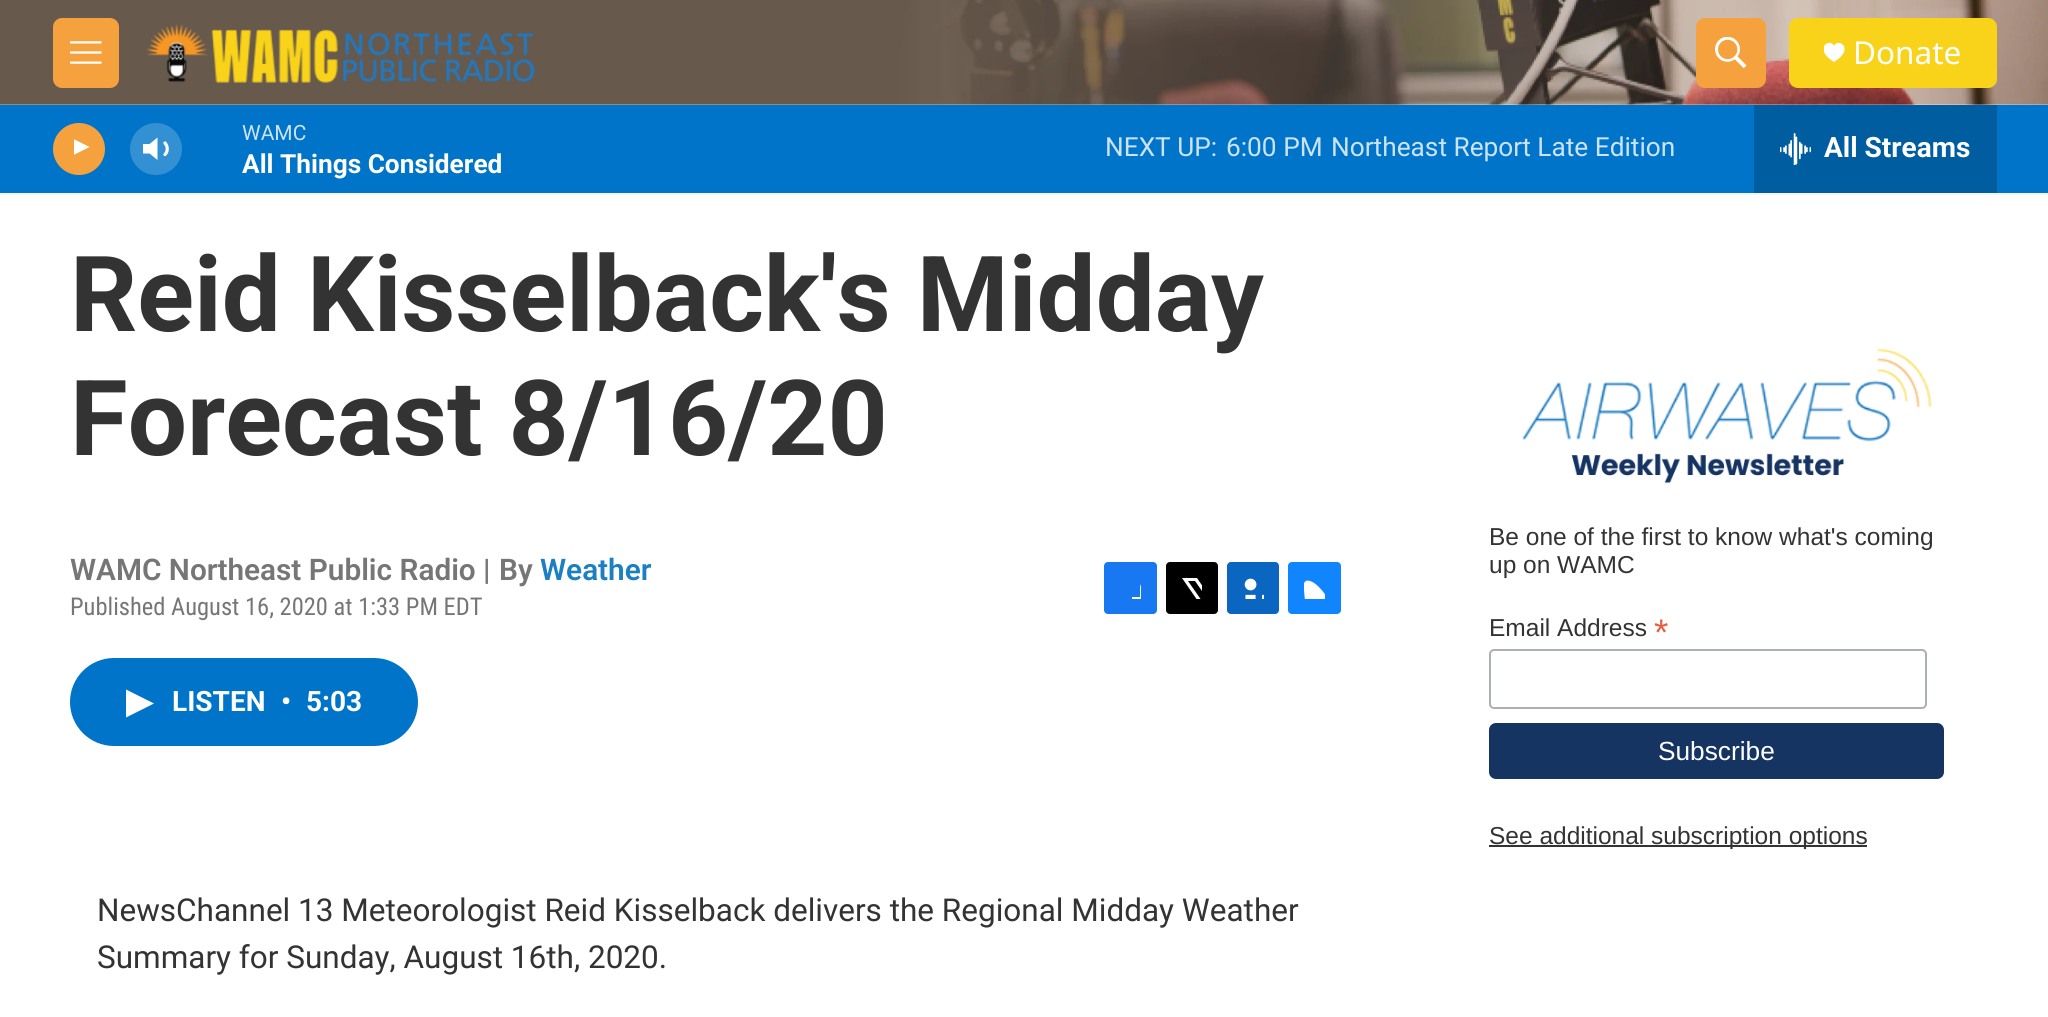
#include <cairo/cairo.h>
#include <math.h>
#include <stddef.h>

static cairo_t *cr;

static void use_color(int r, int g, int b) {
  cairo_set_source_rgb(cr, r / 255.0, g / 255.0, b / 255.0);
}

static void text(double x, double y, const char *s, const char *family, double size, int italic, int bold, int r, int g, int b) {
  cairo_select_font_face(cr, family, italic ? CAIRO_FONT_SLANT_ITALIC : CAIRO_FONT_SLANT_NORMAL,
    bold ? CAIRO_FONT_WEIGHT_BOLD : CAIRO_FONT_WEIGHT_NORMAL);
  cairo_set_font_size(cr, size);
  use_color(r, g, b);
  cairo_move_to(cr, x, y);
  cairo_show_text(cr, s);
}

static void box(double x, double y, double w, double h, int r, int g, int b) {
  use_color(r, g, b);
  cairo_rectangle(cr, x, y, w, h);
  cairo_fill(cr);
}

static void round_rect(double x, double y, double w, double h, double r) {
  cairo_new_sub_path(cr);
  cairo_arc(cr, x + w - r, y + h - r, r, 0, M_PI / 2);
  cairo_arc(cr, x + r, y + h - r, r, M_PI / 2, M_PI);
  cairo_arc(cr, x + r, y + r, r, M_PI, 1.5 * M_PI);
  cairo_arc(cr, x + w - r, y + r, r, 1.5 * M_PI, 2 * M_PI);
  cairo_close_path(cr);
}

static void picture(const char *path, double x, double y, double w, double h) {
  cairo_surface_t *image = cairo_image_surface_create_from_png(path);
  cairo_save(cr);
  cairo_set_source_surface(cr, image, x, y);
  cairo_rectangle(cr, x, y, w, h);
  cairo_fill(cr);
  cairo_restore(cr);
  cairo_surface_destroy(image);
}

static void draw(void) {
  use_color(255, 255, 255);
  cairo_paint(cr);
  box(0, 193, 2048, 2, 245, 245, 245);
  picture("img_01.png", 0, 0, 2048, 105);
  use_color(245, 161, 61);
  round_rect(53, 18, 66, 70, 9);
  cairo_fill(cr);
  picture("img_02.png", 70, 41, 32, 23);
  picture("img_03.png", 146, 24, 389, 59);
  round_rect(1696, 18, 70, 70, 9);
  cairo_fill(cr);
  picture("img_04.png", 1715, 37, 32, 31);
  use_color(249, 211, 25);
  round_rect(1789, 18, 208, 70, 9);
  cairo_fill(cr);
  cairo_save(cr);
  cairo_rectangle(cr, 1824, 42, 21, 21);
  cairo_clip(cr);
  use_color(255, 255, 255);
  cairo_new_path(cr);
  cairo_move_to(cr, 1834, 46);
  cairo_curve_to(cr, 1830.5, 37, 1812, 48.5, 1834, 62);
  cairo_curve_to(cr, 1856, 48.5, 1837.5, 37, 1834, 46);
  cairo_close_path(cr);
  cairo_fill(cr);
  cairo_restore(cr);
  box(0, 105, 2048, 88, 0, 116, 200);
  use_color(245, 161, 61);
  cairo_arc(cr, 79, 149, 26, 0, 2 * M_PI);
  cairo_fill(cr);
  cairo_save(cr);
  cairo_rectangle(cr, 74, 137, 20, 26);
  cairo_clip(cr);
  use_color(255, 255, 255);
  cairo_new_path(cr);
  cairo_move_to(cr, 72.5, 138.5);
  cairo_line_to(cr, 89.5, 147);
  cairo_line_to(cr, 72.5, 155.5);
  cairo_close_path(cr);
  cairo_fill(cr);
  cairo_restore(cr);
  use_color(255, 255, 255);
  cairo_new_path(cr);
  cairo_move_to(cr, 157.5, 137.5);
  cairo_line_to(cr, 149.5, 144);
  cairo_line_to(cr, 143, 144);
  cairo_line_to(cr, 143, 153.5);
  cairo_line_to(cr, 149.5, 153.5);
  cairo_line_to(cr, 157.5, 160);
  cairo_close_path(cr);
  cairo_fill(cr);
  cairo_new_path(cr);
  cairo_move_to(cr, 165, 143);
  cairo_curve_to(cr, 168, 146.5, 168, 151.5, 165, 154.5);
  cairo_set_line_width(cr, 3.2);
  cairo_set_line_cap(cr, CAIRO_LINE_CAP_ROUND);
  cairo_set_line_join(cr, CAIRO_LINE_JOIN_ROUND);
  cairo_stroke(cr);
  cairo_set_source_rgba(cr, 1, 1, 1, 0.2);
  cairo_arc(cr, 156, 149, 26, 0, 2 * M_PI);
  cairo_fill(cr);
  box(1754, 105, 243, 88, 0, 93, 160);
  picture("img_05.png", 1780, 133, 31, 32);
  use_color(23, 120, 242);
  round_rect(1104, 562, 53, 52, 4);
  cairo_fill(cr);
  cairo_save(cr);
  cairo_rectangle(cr, 1120, 578, 21, 21);
  cairo_clip(cr);
  use_color(255, 255, 255);
  cairo_new_path(cr);
  cairo_move_to(cr, 1149, 614);
  cairo_line_to(cr, 1140, 614);
  cairo_line_to(cr, 1140, 606);
  cairo_line_to(cr, 1132, 606);
  cairo_line_to(cr, 1132, 597);
  cairo_line_to(cr, 1140, 597);
  cairo_line_to(cr, 1140, 587);
  cairo_curve_to(cr, 1142, 578.5, 1150, 577, 1157, 578.5);
  cairo_line_to(cr, 1157, 586);
  cairo_curve_to(cr, 1147, 586, 1149, 589, 1149, 597);
  cairo_line_to(cr, 1157, 597);
  cairo_line_to(cr, 1156, 606);
  cairo_line_to(cr, 1149, 606);
  cairo_close_path(cr);
  cairo_fill(cr);
  cairo_restore(cr);
  use_color(0, 0, 0);
  round_rect(1166, 562, 52, 52, 4);
  cairo_fill(cr);
  cairo_save(cr);
  cairo_rectangle(cr, 1181, 578, 21, 21);
  cairo_clip(cr);
  use_color(255, 255, 255);
  cairo_new_path(cr);
  cairo_move_to(cr, 1212, 600);
  cairo_line_to(cr, 1218, 608.5);
  cairo_curve_to(cr, 1218, 610, 1218, 611.5, 1217, 612.5);
  cairo_line_to(cr, 1195, 581);
  cairo_line_to(cr, 1188, 581);
  cairo_line_to(cr, 1211, 614);
  cairo_line_to(cr, 1207, 614);
  cairo_line_to(cr, 1204, 610);
  cairo_line_to(cr, 1200.5, 614);
  cairo_line_to(cr, 1196, 614);
  cairo_line_to(cr, 1202, 607);
  cairo_line_to(cr, 1182, 578);
  cairo_line_to(cr, 1197, 578);
  cairo_line_to(cr, 1210, 597);
  cairo_line_to(cr, 1218, 588);
  cairo_line_to(cr, 1218, 593);
  cairo_close_path(cr);
  cairo_fill(cr);
  cairo_restore(cr);
  use_color(10, 102, 193);
  round_rect(1227, 562, 52, 52, 4);
  cairo_fill(cr);
  picture("img_06.png", 1244, 578, 20, 21);
  use_color(17, 133, 254);
  round_rect(1288, 562, 53, 52, 4);
  cairo_fill(cr);
  picture("img_07.png", 1304, 580, 21, 19);
  use_color(0, 116, 200);
  round_rect(70, 658, 348, 88, 44);
  cairo_fill(cr);
  use_color(255, 255, 255);
  cairo_new_path(cr);
  cairo_move_to(cr, 126, 689.5);
  cairo_line_to(cr, 154, 703.5);
  cairo_line_to(cr, 126, 717.5);
  cairo_close_path(cr);
  cairo_fill(cr);
  picture("img_08.png", 1522, 348, 410, 136);
  round_rect(1490, 650, 436, 58, 4);
  use_color(171, 176, 178);
  cairo_set_line_width(cr, 2);
  cairo_set_line_cap(cr, CAIRO_LINE_CAP_BUTT);
  cairo_set_line_join(cr, CAIRO_LINE_JOIN_MITER);
  cairo_stroke(cr);
  use_color(21, 52, 98);
  round_rect(1489, 723, 455, 56, 7);
  cairo_fill(cr);
  box(1489, 845, 378, 2, 51, 51, 51);
  text(1853, 64, "Donate", "Noto Sans", 31.5, 0, 0, 255, 255, 255);
  text(242, 140, "WAMC", "Roboto", 21, 0, 0, 204, 227, 244);
  text(242, 173, "All Things Considered", "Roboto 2", 26.25, 0, 1, 255, 255, 255);
  text(1105, 156, "NEXT UP:", "Roboto", 26.25, 0, 0, 204, 227, 244);
  text(1226, 156, "6:00 PM", "Roboto", 26.25, 0, 0, 204, 227, 244);
  text(1331, 156, "Northeast Report Late Edition", "Roboto", 26.25, 0, 0, 204, 227, 244);
  text(1824, 157, "All Streams", "Roboto 2", 28, 0, 1, 255, 255, 255);
  text(70, 331, "Reid Kisselback's Midday", "Roboto", 105, 0, 1, 51, 51, 51);
  text(70, 455, "Forecast 8/16/20", "Roboto", 105, 0, 1, 51, 51, 51);
  text(70, 580, "WAMC Northeast Public Radio |", "Roboto SemiBold", 29.75, 0, 0, 118, 118, 118);
  text(499, 580, "By", "Roboto SemiBold", 29.75, 0, 0, 118, 118, 118);
  text(540, 580, "Weather", "Roboto SemiBold", 29.75, 0, 0, 26, 127, 195);
  text(70, 615, "Published August 16, 2020 at 1:33 PM EDT", "Roboto Condensed", 24.5, 0, 0, 118, 118, 118);
  text(172, 711, "LISTEN", "Roboto 2", 28, 0, 1, 255, 255, 255);
  text(281, 711, "•", "Roboto 2", 28, 0, 1, 255, 255, 255);
  text(306, 711, "5:03", "Roboto 2", 28, 0, 1, 255, 255, 255);
  text(97, 921, "NewsChannel 13 Meteorologist Reid Kisselback delivers the Regional Midday Weather", "Roboto", 31.5, 0, 0, 51, 51, 51);
  text(97, 968, "Summary for Sunday, August 16th, 2020.", "Roboto", 31.5, 0, 0, 51, 51, 51);
  text(1489, 545, "Be one of the first to know what's coming", "Liberation Sans", 24.5, 0, 0, 51, 51, 51);
  text(1489, 573, "up on WAMC", "Liberation Sans", 24.5, 0, 0, 51, 51, 51);
  text(1489, 636, "Email Address", "Liberation Sans", 24.5, 0, 0, 51, 51, 51);
  text(1654, 645, "*", "Liberation Sans", 37, 0, 0, 232, 92, 65);
  text(1658, 760, "Subscribe", "Liberation Sans", 26.25, 0, 0, 255, 255, 255);
  text(1489, 844, "See additional subscription options", "Liberation Sans", 24.5, 0, 0, 51, 51, 51);
}

int main(void) {
  cairo_surface_t *surface = cairo_image_surface_create(CAIRO_FORMAT_RGB24, 2048, 1017);
  cr = cairo_create(surface);
  cairo_font_options_t *options = cairo_font_options_create();
  cairo_font_options_set_hint_metrics(options, CAIRO_HINT_METRICS_OFF);
  cairo_font_options_set_hint_style(options, CAIRO_HINT_STYLE_NONE);
  cairo_set_font_options(cr, options);
  cairo_set_miter_limit(cr, 4);
  draw();
  cairo_surface_write_to_png(surface, "out.png");
  cairo_font_options_destroy(options);
  cairo_destroy(cr);
  cairo_surface_destroy(surface);
  return 0;
}
